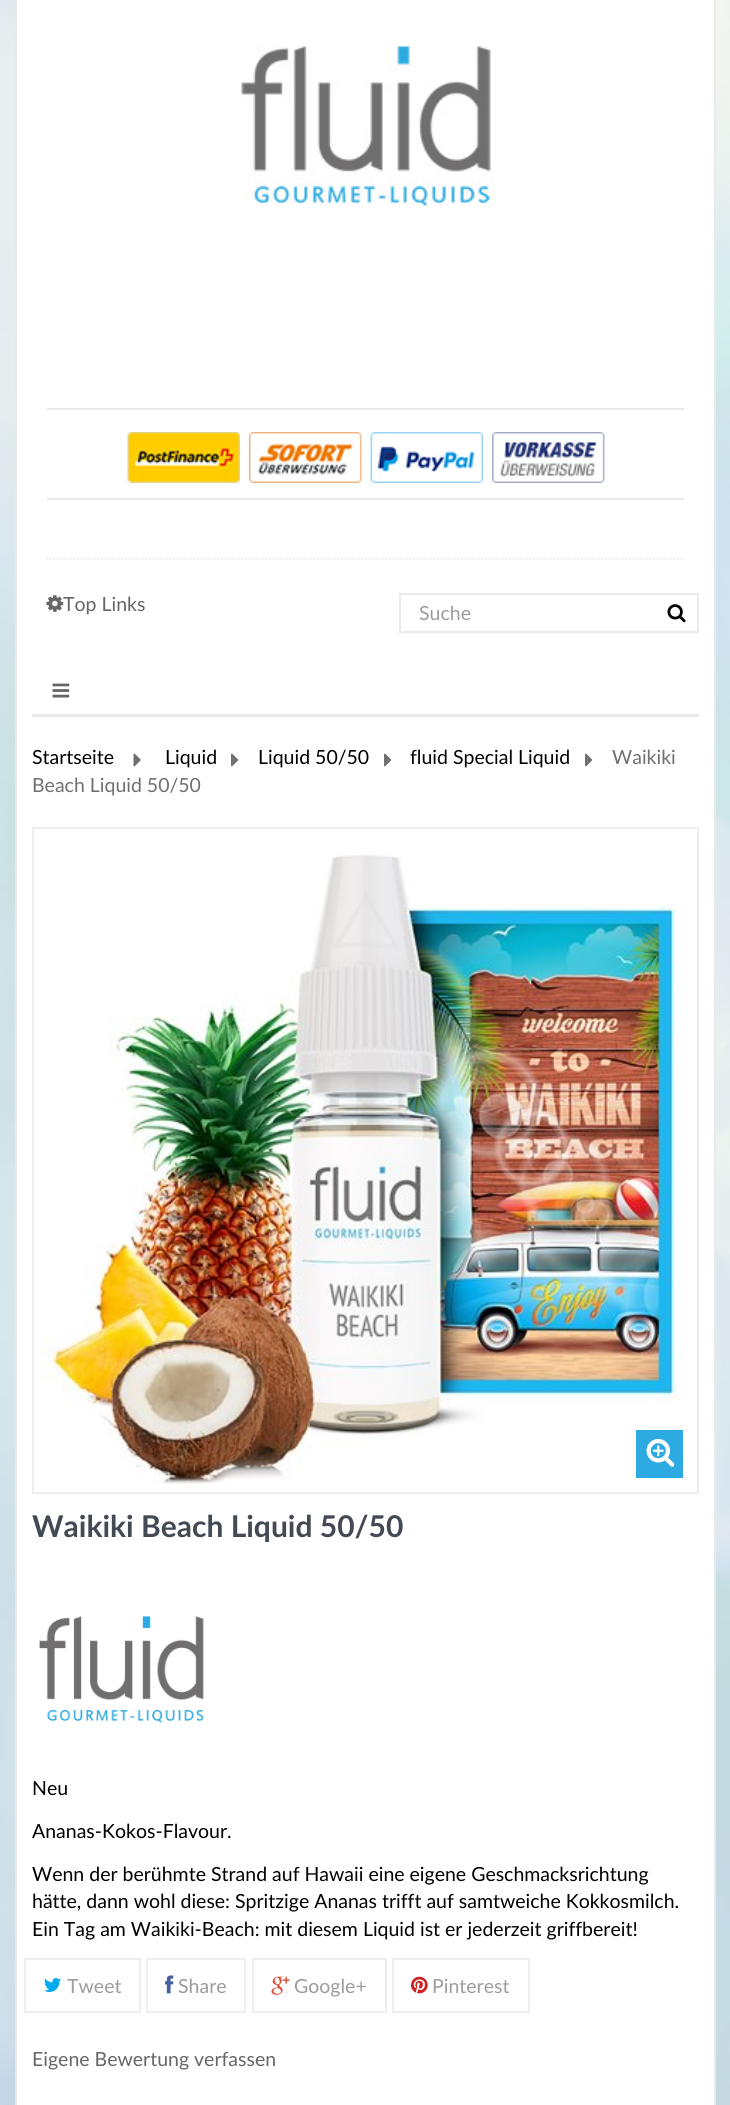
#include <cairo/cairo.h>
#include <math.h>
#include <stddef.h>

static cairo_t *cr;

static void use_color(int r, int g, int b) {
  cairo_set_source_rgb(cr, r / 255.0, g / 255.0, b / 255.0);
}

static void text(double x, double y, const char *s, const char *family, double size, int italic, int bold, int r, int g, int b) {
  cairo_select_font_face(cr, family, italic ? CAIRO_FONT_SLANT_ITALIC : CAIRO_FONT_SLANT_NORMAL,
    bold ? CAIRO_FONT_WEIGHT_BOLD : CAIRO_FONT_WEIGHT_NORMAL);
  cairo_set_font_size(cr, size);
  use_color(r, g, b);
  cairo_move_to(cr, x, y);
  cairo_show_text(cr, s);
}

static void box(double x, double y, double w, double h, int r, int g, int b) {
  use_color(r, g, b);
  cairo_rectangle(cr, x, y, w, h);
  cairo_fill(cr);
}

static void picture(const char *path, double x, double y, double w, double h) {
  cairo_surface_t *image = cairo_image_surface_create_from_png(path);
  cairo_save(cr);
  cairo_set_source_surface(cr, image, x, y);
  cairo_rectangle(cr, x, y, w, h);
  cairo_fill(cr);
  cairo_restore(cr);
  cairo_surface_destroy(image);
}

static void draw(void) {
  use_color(240, 242, 233);
  cairo_paint(cr);
  picture("img_01.png", 0, 0, 730, 2105);
  box(17, 0, 697, 2105, 255, 255, 255);
  box(714, 0, 2, 2105, 233, 233, 233);
  box(15, 0, 2, 2105, 233, 233, 233);
  picture("img_02.png", 241, 45, 254, 162);
  cairo_new_path(cr);
  cairo_move_to(cr, 46.5, 559);
  cairo_line_to(cr, 684, 559);
  cairo_set_line_width(cr, 1.5);
  cairo_set_dash(cr, (double[]){1.5, 1.5}, 2, 0);
  cairo_stroke(cr);
  box(47, 408, 637, 2, 233, 233, 233);
  box(47, 498, 637, 2, 233, 233, 233);
  picture("img_03.png", 127, 432, 113, 51);
  picture("img_04.png", 249, 432, 113, 51);
  picture("img_05.png", 370, 432, 113, 51);
  picture("img_06.png", 492, 432, 113, 51);
  picture("img_07.png", 46, 595, 18, 17);
  cairo_rectangle(cr, 400, 594, 298, 38);
  use_color(235, 235, 235);
  cairo_set_line_width(cr, 2);
  cairo_set_dash(cr, NULL, 0, 0);
  cairo_stroke(cr);
  picture("img_08.png", 667, 604, 19, 19);
  box(32, 714, 667, 3, 233, 233, 233);
  picture("img_09.png", 52, 683, 18, 15);
  picture("img_10.png", 133, 753, 8, 14);
  picture("img_11.png", 231, 753, 8, 14);
  picture("img_11.png", 384, 753, 8, 14);
  picture("img_11.png", 585, 753, 8, 14);
  cairo_rectangle(cr, 33, 828, 665, 665);
  use_color(238, 238, 238);
  cairo_stroke(cr);
  picture("img_12.png", 40, 854, 637, 630);
  box(636, 1430, 47, 48, 45, 170, 225);
  picture("img_13.png", 646, 1438, 29, 29);
  picture("img_14.png", 39, 1616, 165, 107);
  cairo_rectangle(cr, 25, 1959, 115, 53);
  use_color(238, 238, 238);
  cairo_stroke(cr);
  picture("img_15.png", 44, 1978, 17, 14);
  cairo_rectangle(cr, 147, 1959, 98, 53);
  cairo_stroke(cr);
  picture("img_16.png", 165, 1975, 9, 19);
  cairo_rectangle(cr, 253, 1959, 133, 53);
  cairo_stroke(cr);
  picture("img_17.png", 271, 1976, 19, 19);
  cairo_rectangle(cr, 393, 1959, 136, 53);
  cairo_stroke(cr);
  picture("img_18.png", 411, 1976, 17, 18);
  text(63, 611, "Top Links", "Lato", 19.5, 0, 0, 102, 102, 102);
  text(419, 620, "Suche", "Lato", 19.5, 0, 0, 156, 156, 156);
  text(32, 764, "Startseite", "Lato", 19.5, 0, 0, 0, 0, 0);
  text(165, 764, "Liquid", "Lato", 19.5, 0, 0, 0, 0, 0);
  text(258, 764, "Liquid 50/50", "Lato", 19.5, 0, 0, 0, 0, 0);
  text(410, 764, "fluid Special Liquid", "Lato", 19.5, 0, 0, 0, 0, 0);
  text(612, 764, "Waikiki", "Lato", 19.5, 0, 0, 112, 112, 111);
  text(32, 792, "Beach Liquid 50/50", "Lato", 19.5, 0, 0, 112, 112, 111);
  text(32, 1537, "Waikiki Beach Liquid 50/50", "Lato", 30, 0, 1, 67, 74, 84);
  text(32, 1795, "Neu", "Lato", 19.5, 0, 0, 0, 0, 0);
  text(32, 1838, "Ananas-Kokos-Flavour.", "Lato", 19.5, 0, 0, 0, 0, 0);
  text(32, 1881, "Wenn der berühmte Strand auf Hawaii eine eigene Geschmacksrichtung", "Lato", 19.5, 0, 0, 0, 0, 0);
  text(32, 1908, "hätte, dann wohl diese: Spritzige Ananas trifft auf samtweiche Kokkosmilch.", "Lato", 19.5, 0, 0, 0, 0, 0);
  text(32, 1936, "Ein Tag am Waikiki-Beach: mit diesem Liquid ist er jederzeit griffbereit!", "Lato", 19.5, 0, 0, 0, 0, 0);
  text(67, 1993, "Tweet", "Lato", 19.5, 0, 0, 156, 156, 156);
  text(178, 1993, "Share", "Lato", 19.5, 0, 0, 156, 156, 156);
  text(294, 1993, "Google+", "Lato", 19.5, 0, 0, 156, 156, 156);
  text(432, 1993, "Pinterest", "Lato", 19.5, 0, 0, 156, 156, 156);
  text(32, 2066, "Eigene Bewertung verfassen", "Lato", 19.5, 0, 0, 102, 102, 102);
}

int main(void) {
  cairo_surface_t *surface = cairo_image_surface_create(CAIRO_FORMAT_RGB24, 730, 2105);
  cr = cairo_create(surface);
  cairo_font_options_t *options = cairo_font_options_create();
  cairo_font_options_set_hint_metrics(options, CAIRO_HINT_METRICS_OFF);
  cairo_font_options_set_hint_style(options, CAIRO_HINT_STYLE_NONE);
  cairo_set_font_options(cr, options);
  cairo_set_miter_limit(cr, 4);
  draw();
  cairo_surface_write_to_png(surface, "out.png");
  cairo_font_options_destroy(options);
  cairo_destroy(cr);
  cairo_surface_destroy(surface);
  return 0;
}
